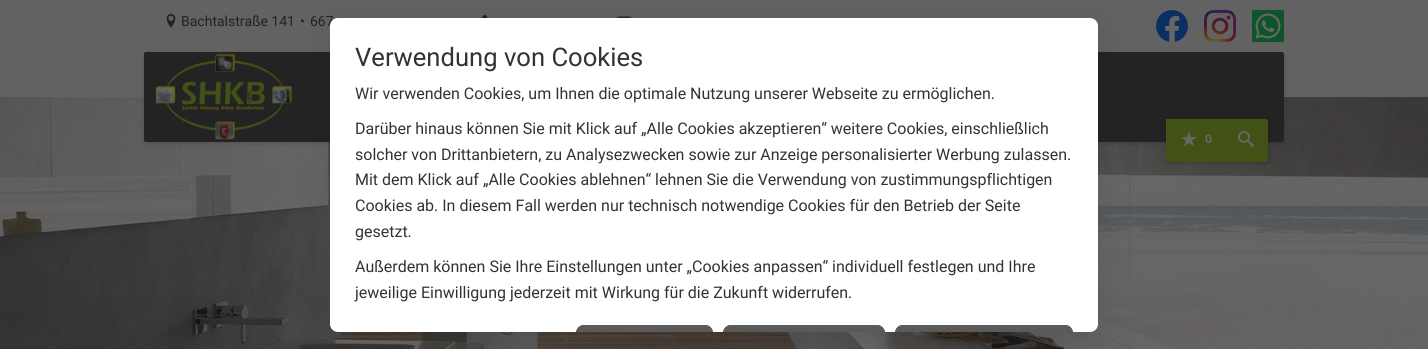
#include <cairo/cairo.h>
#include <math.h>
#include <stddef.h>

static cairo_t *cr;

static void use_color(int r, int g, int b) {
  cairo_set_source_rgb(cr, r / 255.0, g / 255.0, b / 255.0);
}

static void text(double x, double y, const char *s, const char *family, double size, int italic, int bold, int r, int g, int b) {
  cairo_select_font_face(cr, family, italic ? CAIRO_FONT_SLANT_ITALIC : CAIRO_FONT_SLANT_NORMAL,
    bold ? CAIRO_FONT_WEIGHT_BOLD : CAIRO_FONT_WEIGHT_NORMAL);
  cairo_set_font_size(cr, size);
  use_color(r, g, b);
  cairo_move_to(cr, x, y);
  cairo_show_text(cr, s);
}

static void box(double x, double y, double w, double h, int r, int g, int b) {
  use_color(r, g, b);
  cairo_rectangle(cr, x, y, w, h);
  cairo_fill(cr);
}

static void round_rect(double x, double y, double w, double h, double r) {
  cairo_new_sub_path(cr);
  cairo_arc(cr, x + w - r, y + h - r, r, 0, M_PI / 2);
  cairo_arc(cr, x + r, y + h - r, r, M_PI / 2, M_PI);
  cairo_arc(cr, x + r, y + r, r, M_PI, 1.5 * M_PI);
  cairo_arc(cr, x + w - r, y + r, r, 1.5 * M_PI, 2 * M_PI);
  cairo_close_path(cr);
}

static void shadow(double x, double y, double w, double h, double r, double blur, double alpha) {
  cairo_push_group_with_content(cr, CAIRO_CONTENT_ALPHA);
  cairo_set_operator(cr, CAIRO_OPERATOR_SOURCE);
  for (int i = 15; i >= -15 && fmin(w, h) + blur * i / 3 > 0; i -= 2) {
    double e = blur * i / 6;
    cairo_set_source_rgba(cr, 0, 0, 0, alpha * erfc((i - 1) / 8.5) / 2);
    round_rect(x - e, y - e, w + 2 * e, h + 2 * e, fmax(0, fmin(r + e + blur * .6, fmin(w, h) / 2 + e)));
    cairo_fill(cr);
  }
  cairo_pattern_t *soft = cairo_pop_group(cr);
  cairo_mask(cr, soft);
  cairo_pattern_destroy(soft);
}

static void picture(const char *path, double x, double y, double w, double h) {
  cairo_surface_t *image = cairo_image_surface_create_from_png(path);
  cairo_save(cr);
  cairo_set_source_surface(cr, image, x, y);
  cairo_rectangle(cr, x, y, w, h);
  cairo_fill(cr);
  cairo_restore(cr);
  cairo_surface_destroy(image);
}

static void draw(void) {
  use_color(98, 98, 98);
  cairo_paint(cr);
  picture("img_01.png", 166, 13, 10, 15);
  picture("img_02.png", 482, 14, 6, 4);
  picture("img_03.png", 617, 16, 14, 2);
  picture("img_04.png", 1156, 10, 32, 32);
  picture("img_05.png", 1204, 10, 32, 32);
  picture("img_06.png", 1252, 10, 32, 32);
  picture("img_10.png", 0, 97, 1428, 252);
  use_color(0, 0, 0);
  shadow(144, 54, 1140, 90, 2, 2.5, 0.15);
  use_color(35, 35, 36);
  round_rect(144, 52, 1140, 90, 2);
  cairo_fill(cr);
  picture("img_07.png", 154, 52, 139, 90);
  use_color(0, 0, 0);
  shadow(1166, 120, 103, 43, 0, 1.5, 0.15);
  box(1166, 119, 1, 43, 70, 84, 31);
  box(1167, 119, 56, 43, 66, 82, 22);
  picture("img_08.png", 1181, 131, 16, 16);
  box(1223, 119, 1, 43, 70, 84, 31);
  use_color(66, 82, 22);
  cairo_new_path(cr);
  cairo_move_to(cr, 1224, 119);
  cairo_line_to(cr, 1266, 119);
  cairo_curve_to(cr, 1267, 119, 1268, 120, 1268, 121);
  cairo_line_to(cr, 1268, 160);
  cairo_curve_to(cr, 1268, 161, 1267, 162, 1266, 162);
  cairo_line_to(cr, 1224, 162);
  cairo_close_path(cr);
  cairo_fill(cr);
  picture("img_09.png", 1238, 131, 16, 16);
  use_color(0, 0, 0);
  shadow(330, 24, 768, 314, 8, 14, 0.1);
  text(181, 26, "Bachtalstraße 141", "Roboto", 14, 0, 0, 34, 34, 34);
  text(300, 26, "•", "Roboto", 14, 0, 0, 34, 34, 34);
  text(310, 26, "667", "Roboto", 14, 0, 0, 34, 34, 34);
  text(1205, 143, "0", "Roboto", 12, 0, 1, 102, 102, 102);
  use_color(255, 255, 255);
  round_rect(330, 18, 768, 314, 8);
  cairo_fill(cr);
  text(355, 66, "Verwendung von Cookies", "Roboto", 25.6, 0, 0, 51, 51, 51);
  text(355, 99, "Wir verwenden Cookies, um Ihnen die optimale Nutzung unserer Webseite zu ermöglichen.", "Roboto", 16, 0, 0, 51, 51, 51);
  text(355, 134, "Darüber hinaus können Sie mit Klick auf „Alle Cookies akzeptieren“ weitere Cookies, einschließlich", "Roboto", 16, 0, 0, 51, 51, 51);
  text(355, 160, "solcher von Drittanbietern, zu Analysezwecken sowie zur Anzeige personalisierter Werbung zulassen.", "Roboto", 16, 0, 0, 51, 51, 51);
  text(355, 185, "Mit dem Klick auf „Alle Cookies ablehnen“ lehnen Sie die Verwendung von zustimmungspflichtigen", "Roboto", 16, 0, 0, 51, 51, 51);
  text(355, 211, "Cookies ab. In diesem Fall werden nur technisch notwendige Cookies für den Betrieb der Seite", "Roboto", 16, 0, 0, 51, 51, 51);
  text(355, 237, "gesetzt.", "Roboto", 16, 0, 0, 51, 51, 51);
  text(355, 272, "Außerdem können Sie Ihre Einstellungen unter „Cookies anpassen“ individuell festlegen und Ihre", "Roboto", 16, 0, 0, 51, 51, 51);
  text(355, 298, "jeweilige Einwilligung jederzeit mit Wirkung für die Zukunft widerrufen.", "Roboto", 16, 0, 0, 51, 51, 51);
  use_color(90, 90, 90);
  cairo_new_path(cr);
  cairo_move_to(cr, 584, 325);
  cairo_line_to(cr, 705, 325);
  cairo_curve_to(cr, 709.5, 325, 713, 328.5, 713, 333);
  cairo_line_to(cr, 713, 332);
  cairo_line_to(cr, 576, 332);
  cairo_line_to(cr, 576, 333);
  cairo_curve_to(cr, 576, 328.5, 579.5, 325, 584, 325);
  cairo_close_path(cr);
  cairo_fill(cr);
  cairo_new_path(cr);
  cairo_move_to(cr, 584, 325);
  cairo_curve_to(cr, 580, 325, 577, 328, 576, 332);
  cairo_line_to(cr, 577, 332);
  cairo_curve_to(cr, 578, 329, 580, 326, 584, 326);
  cairo_line_to(cr, 705, 326);
  cairo_curve_to(cr, 709, 326, 711, 329, 712, 332);
  cairo_line_to(cr, 713, 332);
  cairo_curve_to(cr, 712, 328, 709, 325, 705, 325);
  cairo_close_path(cr);
  cairo_fill(cr);
  cairo_new_path(cr);
  cairo_move_to(cr, 731, 325);
  cairo_line_to(cr, 877, 325);
  cairo_curve_to(cr, 881.5, 325, 885, 328.5, 885, 333);
  cairo_line_to(cr, 885, 332);
  cairo_line_to(cr, 723, 332);
  cairo_line_to(cr, 723, 333);
  cairo_curve_to(cr, 723, 328.5, 726.5, 325, 731, 325);
  cairo_close_path(cr);
  cairo_fill(cr);
  cairo_new_path(cr);
  cairo_move_to(cr, 731, 325);
  cairo_curve_to(cr, 727, 325, 724, 328, 723, 332);
  cairo_line_to(cr, 724, 332);
  cairo_curve_to(cr, 725, 329, 727, 326, 731, 326);
  cairo_line_to(cr, 877, 326);
  cairo_curve_to(cr, 881, 326, 883, 329, 884, 332);
  cairo_line_to(cr, 885, 332);
  cairo_curve_to(cr, 884, 328, 881, 325, 877, 325);
  cairo_close_path(cr);
  cairo_fill(cr);
  cairo_new_path(cr);
  cairo_move_to(cr, 903, 325);
  cairo_line_to(cr, 1065, 325);
  cairo_curve_to(cr, 1069.5, 325, 1073, 328.5, 1073, 333);
  cairo_line_to(cr, 1073, 332);
  cairo_line_to(cr, 895, 332);
  cairo_line_to(cr, 895, 333);
  cairo_curve_to(cr, 895, 328.5, 898.5, 325, 903, 325);
  cairo_close_path(cr);
  cairo_fill(cr);
  cairo_new_path(cr);
  cairo_move_to(cr, 903, 325);
  cairo_curve_to(cr, 899, 325, 896, 328, 895, 332);
  cairo_line_to(cr, 896, 332);
  cairo_curve_to(cr, 897, 329, 899, 326, 903, 326);
  cairo_line_to(cr, 1065, 326);
  cairo_curve_to(cr, 1069, 326, 1071, 329, 1072, 332);
  cairo_line_to(cr, 1073, 332);
  cairo_curve_to(cr, 1072, 328, 1069, 325, 1065, 325);
  cairo_close_path(cr);
  cairo_fill(cr);
}

int main(void) {
  cairo_surface_t *surface = cairo_image_surface_create(CAIRO_FORMAT_RGB24, 1428, 349);
  cr = cairo_create(surface);
  cairo_font_options_t *options = cairo_font_options_create();
  cairo_font_options_set_hint_metrics(options, CAIRO_HINT_METRICS_OFF);
  cairo_font_options_set_hint_style(options, CAIRO_HINT_STYLE_NONE);
  cairo_set_font_options(cr, options);
  cairo_set_miter_limit(cr, 4);
  draw();
  cairo_surface_write_to_png(surface, "out.png");
  cairo_font_options_destroy(options);
  cairo_destroy(cr);
  cairo_surface_destroy(surface);
  return 0;
}
